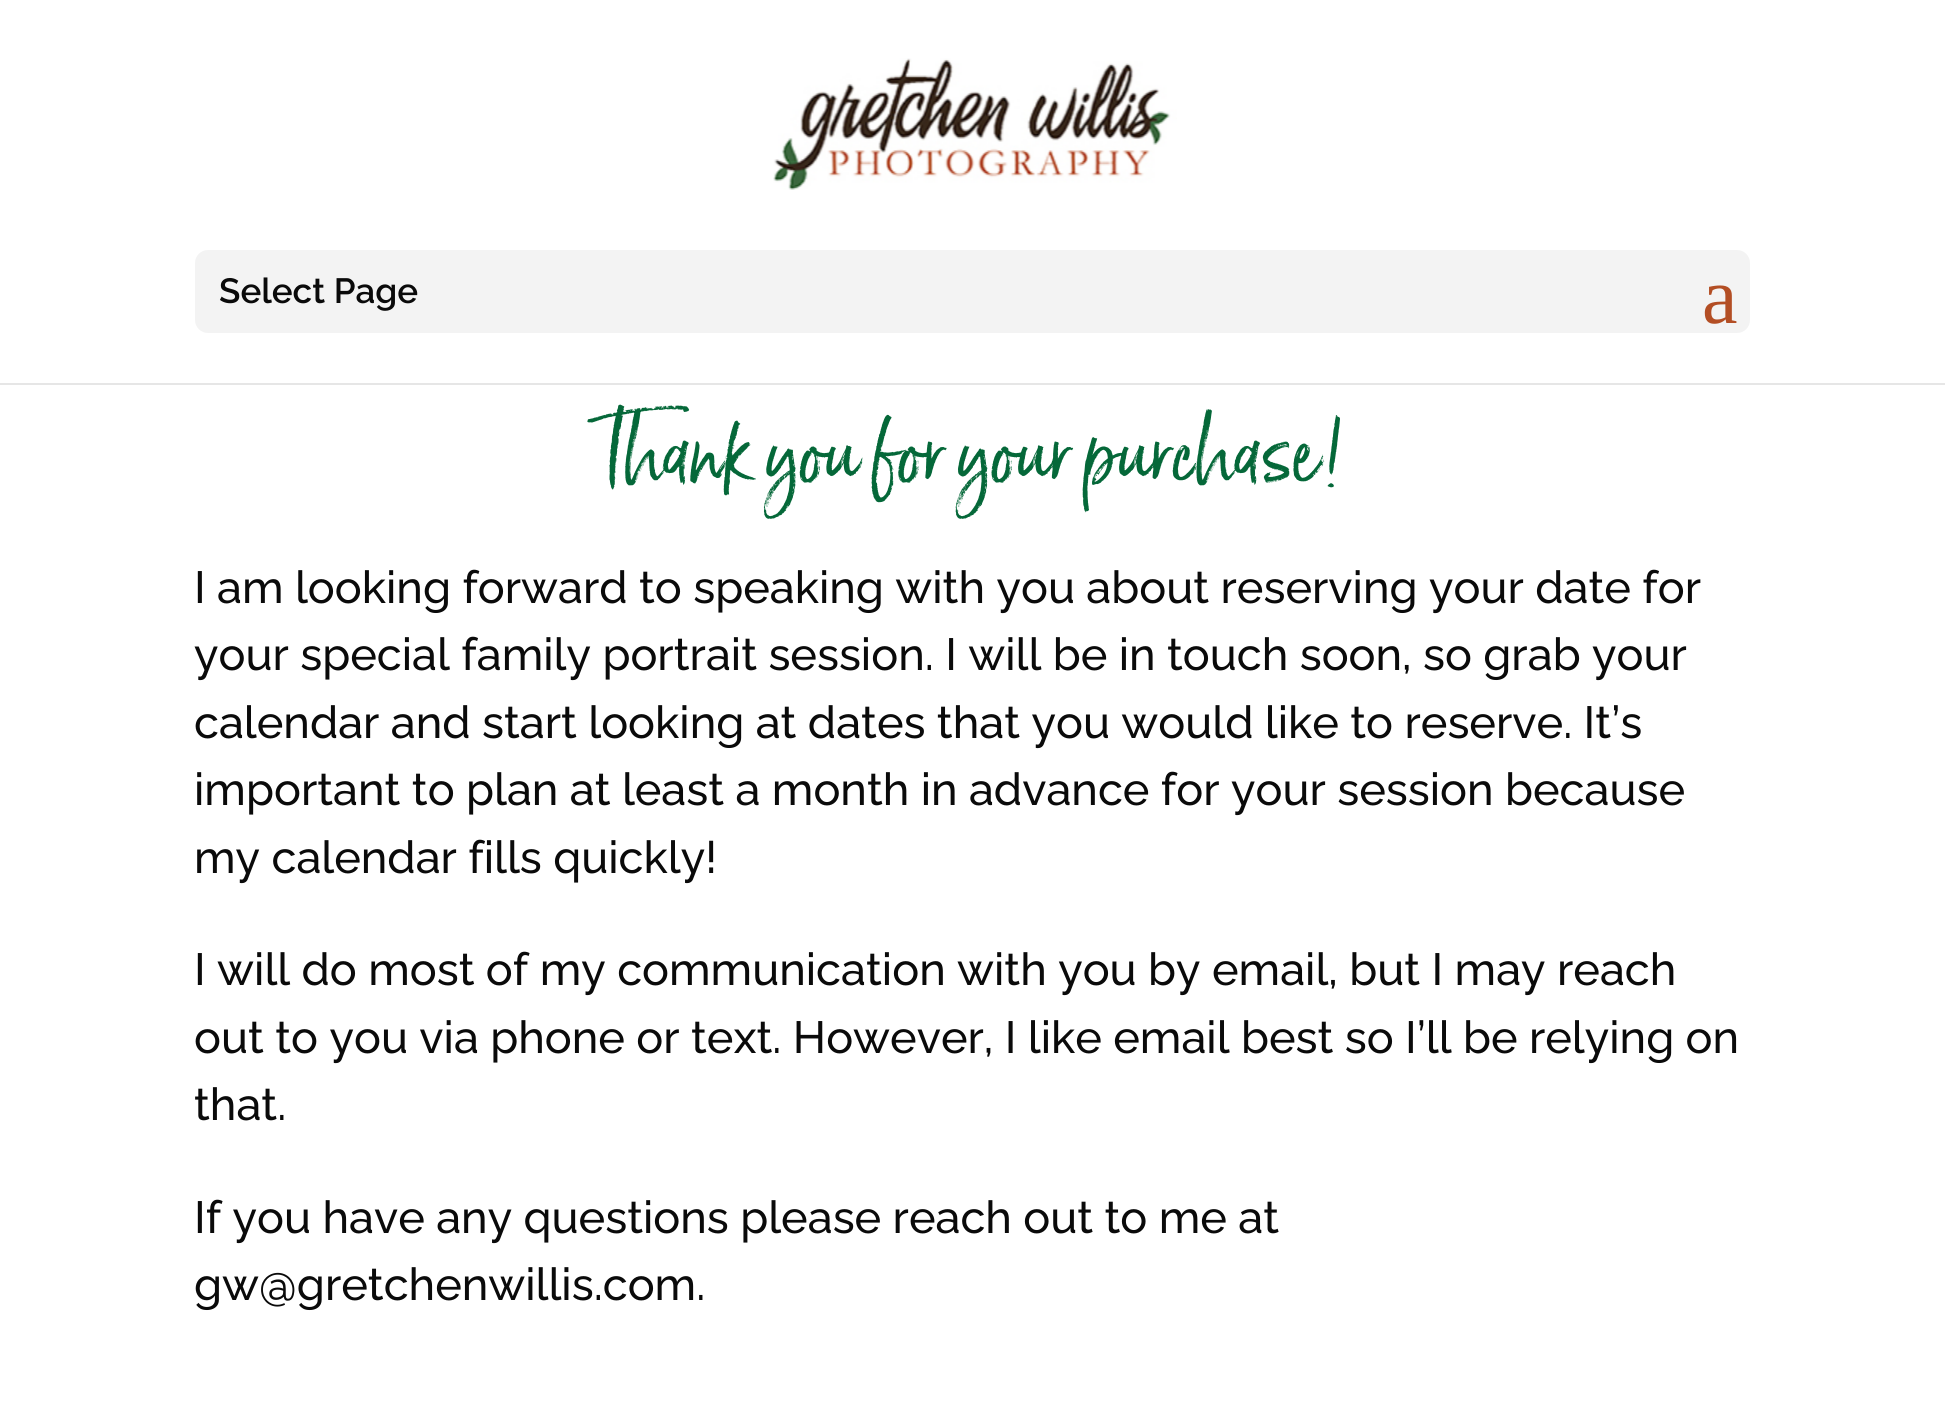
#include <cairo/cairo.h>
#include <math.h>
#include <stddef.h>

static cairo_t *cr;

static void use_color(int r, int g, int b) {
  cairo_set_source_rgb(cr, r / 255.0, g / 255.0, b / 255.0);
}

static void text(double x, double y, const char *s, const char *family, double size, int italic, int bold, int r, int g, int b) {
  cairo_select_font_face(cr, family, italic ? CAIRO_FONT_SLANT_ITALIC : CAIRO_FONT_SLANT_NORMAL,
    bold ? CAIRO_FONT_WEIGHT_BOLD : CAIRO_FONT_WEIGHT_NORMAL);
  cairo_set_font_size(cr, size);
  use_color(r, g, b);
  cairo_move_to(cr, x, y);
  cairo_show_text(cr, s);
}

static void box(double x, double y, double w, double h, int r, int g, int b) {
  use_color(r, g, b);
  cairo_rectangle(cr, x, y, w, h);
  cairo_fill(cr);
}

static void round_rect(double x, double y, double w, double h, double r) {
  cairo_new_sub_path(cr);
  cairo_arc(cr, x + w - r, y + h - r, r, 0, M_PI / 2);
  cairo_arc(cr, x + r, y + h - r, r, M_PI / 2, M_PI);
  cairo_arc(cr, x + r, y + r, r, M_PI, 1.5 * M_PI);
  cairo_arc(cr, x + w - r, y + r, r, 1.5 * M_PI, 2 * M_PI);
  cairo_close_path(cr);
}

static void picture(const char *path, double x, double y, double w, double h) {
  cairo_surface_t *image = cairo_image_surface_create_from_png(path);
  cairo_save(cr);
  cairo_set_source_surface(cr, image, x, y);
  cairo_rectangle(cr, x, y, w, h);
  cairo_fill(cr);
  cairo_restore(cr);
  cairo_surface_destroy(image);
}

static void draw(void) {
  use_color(255, 255, 255);
  cairo_paint(cr);
  box(0, 383, 1945, 2, 230, 230, 230);
  picture("img_01.png", 773, 58, 404, 132);
  use_color(243, 243, 243);
  round_rect(195, 250, 1555, 83, 13);
  cairo_fill(cr);
  text(219, 303, "Select Page", "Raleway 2 Thin", 35, 0, 0, 10, 10, 10);
  text(1702, 323, "a", "Liberation Serif", 80, 0, 0, 179, 78, 36);
  text(597, 478, "Thank you for your purchase!", "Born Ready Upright", 80, 0, 0, 5, 104, 57);
  text(194, 603, "I am looking forward to speaking with you about reserving your date for", "Raleway Thin", 45, 0, 0, 10, 10, 10);
  text(194, 670, "your special family portrait session. I will be in touch soon, so grab your", "Raleway Thin", 45, 0, 0, 10, 10, 10);
  text(194, 738, "calendar and start looking at dates that you would like to reserve. It’s", "Raleway Thin", 45, 0, 0, 10, 10, 10);
  text(194, 805, "important to plan at least a month in advance for your session because", "Raleway Thin", 45, 0, 0, 10, 10, 10);
  text(194, 873, "my calendar fills quickly!", "Raleway Thin", 45, 0, 0, 10, 10, 10);
  text(194, 985, "I will do most of my communication with you by email, but I may reach", "Raleway Thin", 45, 0, 0, 10, 10, 10);
  text(194, 1053, "out to you via phone or text. However, I like email best so I’ll be relying on", "Raleway Thin", 45, 0, 0, 10, 10, 10);
  text(194, 1120, "that.", "Raleway Thin", 45, 0, 0, 10, 10, 10);
  text(194, 1233, "If you have any questions please reach out to me at", "Raleway Thin", 45, 0, 0, 10, 10, 10);
  text(194, 1300, "gw@gretchenwillis.com.", "Raleway Thin", 45, 0, 0, 10, 10, 10);
}

int main(void) {
  cairo_surface_t *surface = cairo_image_surface_create(CAIRO_FORMAT_RGB24, 1945, 1421);
  cr = cairo_create(surface);
  cairo_font_options_t *options = cairo_font_options_create();
  cairo_font_options_set_hint_metrics(options, CAIRO_HINT_METRICS_OFF);
  cairo_font_options_set_hint_style(options, CAIRO_HINT_STYLE_NONE);
  cairo_set_font_options(cr, options);
  cairo_set_miter_limit(cr, 4);
  draw();
  cairo_surface_write_to_png(surface, "out.png");
  cairo_font_options_destroy(options);
  cairo_destroy(cr);
  cairo_surface_destroy(surface);
  return 0;
}
